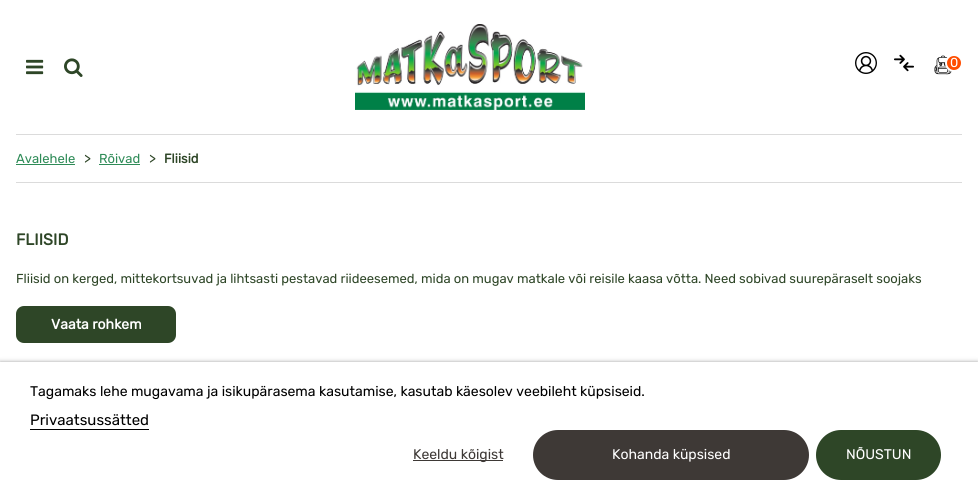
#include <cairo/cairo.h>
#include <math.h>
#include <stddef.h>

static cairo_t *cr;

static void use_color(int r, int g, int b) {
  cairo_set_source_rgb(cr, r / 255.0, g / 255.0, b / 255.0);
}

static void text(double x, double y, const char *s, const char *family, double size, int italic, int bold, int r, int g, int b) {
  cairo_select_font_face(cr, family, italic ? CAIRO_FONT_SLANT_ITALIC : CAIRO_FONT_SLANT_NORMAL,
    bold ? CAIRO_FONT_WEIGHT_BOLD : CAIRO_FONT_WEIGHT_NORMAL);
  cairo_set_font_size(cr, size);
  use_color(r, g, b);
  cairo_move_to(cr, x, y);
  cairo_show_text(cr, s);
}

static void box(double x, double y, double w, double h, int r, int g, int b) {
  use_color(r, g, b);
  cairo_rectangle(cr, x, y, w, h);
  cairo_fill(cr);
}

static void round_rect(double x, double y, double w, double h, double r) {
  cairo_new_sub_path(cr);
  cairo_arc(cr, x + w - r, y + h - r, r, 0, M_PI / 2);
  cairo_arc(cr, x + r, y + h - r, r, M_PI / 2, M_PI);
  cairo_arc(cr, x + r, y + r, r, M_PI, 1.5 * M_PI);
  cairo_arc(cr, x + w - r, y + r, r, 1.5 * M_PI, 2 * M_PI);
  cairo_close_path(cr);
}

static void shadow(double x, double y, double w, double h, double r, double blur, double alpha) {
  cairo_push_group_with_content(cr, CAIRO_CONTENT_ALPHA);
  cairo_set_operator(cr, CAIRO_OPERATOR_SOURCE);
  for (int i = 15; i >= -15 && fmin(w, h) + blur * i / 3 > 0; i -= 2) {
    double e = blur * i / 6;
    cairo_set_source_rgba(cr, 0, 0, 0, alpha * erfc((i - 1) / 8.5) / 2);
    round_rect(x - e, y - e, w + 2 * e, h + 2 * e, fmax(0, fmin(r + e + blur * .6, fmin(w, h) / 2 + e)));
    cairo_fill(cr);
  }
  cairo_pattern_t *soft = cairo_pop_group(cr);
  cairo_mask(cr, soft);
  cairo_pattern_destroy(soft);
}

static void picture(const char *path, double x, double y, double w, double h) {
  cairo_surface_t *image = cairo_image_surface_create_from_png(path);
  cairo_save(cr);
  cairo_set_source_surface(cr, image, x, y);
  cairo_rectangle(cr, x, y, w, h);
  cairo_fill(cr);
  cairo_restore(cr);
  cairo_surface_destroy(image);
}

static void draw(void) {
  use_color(255, 255, 255);
  cairo_paint(cr);
  picture("img_01.png", 26, 59, 18, 16);
  picture("img_02.png", 64, 58, 19, 19);
  picture("img_03.png", 355, 24, 230, 86);
  picture("img_04.png", 855, 52, 22, 22);
  picture("img_05.png", 894, 54, 20, 18);
  picture("img_06.png", 934, 55, 18, 20);
  use_color(255, 77, 0);
  cairo_arc(cr, 954, 63, 8, 0, 2 * M_PI);
  cairo_fill_preserve(cr);
  use_color(255, 255, 255);
  cairo_stroke(cr);
  box(16, 134, 946, 1, 219, 219, 219);
  box(16, 182, 946, 1, 219, 219, 219);
  box(16, 164, 59, 1, 46, 139, 87);
  box(99, 164, 41, 1, 46, 139, 87);
  use_color(46, 70, 39);
  round_rect(16, 306, 160, 37, 8);
  cairo_fill(cr);
  use_color(112, 112, 112);
  shadow(0, 363, 978, 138, 0, 2.5, 1);
  box(0, 362, 978, 138, 255, 255, 255);
  box(30, 429, 119, 1, 0, 0, 0);
  box(413, 460, 90, 1, 62, 57, 54);
  round_rect(533, 430, 276, 50, 25);
  cairo_fill(cr);
  use_color(46, 70, 39);
  round_rect(816, 430, 125, 50, 25);
  cairo_fill(cr);
  text(950, 67, "0", "Rubik", 13, 0, 0, 255, 255, 255);
  text(16, 163, "Avalehele", "Rubik", 13, 0, 0, 46, 139, 87);
  text(84, 163, ">", "Rubik", 14, 0, 0, 46, 70, 39);
  text(99, 163, "Rõivad", "Rubik", 13, 0, 0, 46, 139, 87);
  text(149, 163, ">", "Rubik", 14, 0, 0, 46, 70, 39);
  text(164, 163, "Fliisid", "Rubik", 13, 0, 1, 46, 70, 39);
  text(16, 245, "FLIISID", "Rubik", 16, 0, 1, 46, 70, 39);
  text(16, 283, "Fliisid on kerged, mittekortsuvad ja lihtsasti pestavad riideesemed, mida on mugav matkale või reisile kaasa võtta. Need sobivad suurepäraselt soojaks", "Rubik", 13, 0, 0, 46, 70, 39);
  text(51, 329, "Vaata rohkem", "Rubik", 14, 0, 1, 255, 255, 255);
  text(30, 396, "Tagamaks lehe mugavama ja isikupärasema kasutamise, kasutab käesolev veebileht küpsiseid.", "Rubik", 14, 0, 0, 0, 0, 0);
  text(30, 425, "Privaatsussätted", "Rubik", 15, 0, 0, 0, 0, 0);
  text(413, 459, "Keeldu kõigist", "Rubik", 14, 0, 0, 62, 57, 54);
  text(612, 459, "Kohanda küpsised", "Rubik", 14, 0, 0, 255, 255, 255);
  text(846, 459, "NÕUSTUN", "Rubik", 14, 0, 0, 255, 255, 255);
}

int main(void) {
  cairo_surface_t *surface = cairo_image_surface_create(CAIRO_FORMAT_RGB24, 978, 500);
  cr = cairo_create(surface);
  cairo_font_options_t *options = cairo_font_options_create();
  cairo_font_options_set_hint_metrics(options, CAIRO_HINT_METRICS_OFF);
  cairo_font_options_set_hint_style(options, CAIRO_HINT_STYLE_NONE);
  cairo_set_font_options(cr, options);
  cairo_set_miter_limit(cr, 4);
  draw();
  cairo_surface_write_to_png(surface, "out.png");
  cairo_font_options_destroy(options);
  cairo_destroy(cr);
  cairo_surface_destroy(surface);
  return 0;
}
